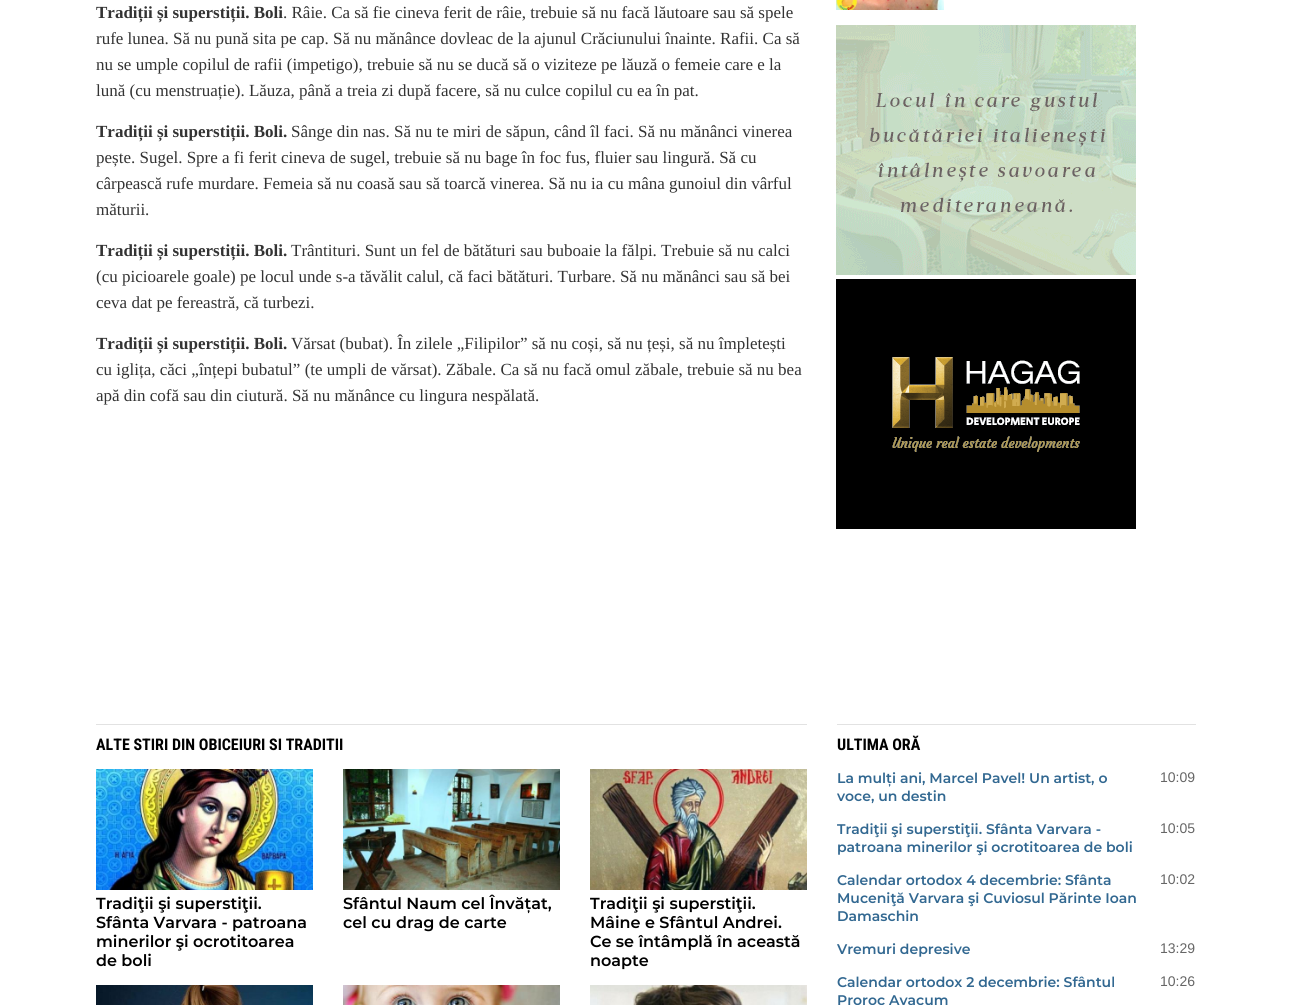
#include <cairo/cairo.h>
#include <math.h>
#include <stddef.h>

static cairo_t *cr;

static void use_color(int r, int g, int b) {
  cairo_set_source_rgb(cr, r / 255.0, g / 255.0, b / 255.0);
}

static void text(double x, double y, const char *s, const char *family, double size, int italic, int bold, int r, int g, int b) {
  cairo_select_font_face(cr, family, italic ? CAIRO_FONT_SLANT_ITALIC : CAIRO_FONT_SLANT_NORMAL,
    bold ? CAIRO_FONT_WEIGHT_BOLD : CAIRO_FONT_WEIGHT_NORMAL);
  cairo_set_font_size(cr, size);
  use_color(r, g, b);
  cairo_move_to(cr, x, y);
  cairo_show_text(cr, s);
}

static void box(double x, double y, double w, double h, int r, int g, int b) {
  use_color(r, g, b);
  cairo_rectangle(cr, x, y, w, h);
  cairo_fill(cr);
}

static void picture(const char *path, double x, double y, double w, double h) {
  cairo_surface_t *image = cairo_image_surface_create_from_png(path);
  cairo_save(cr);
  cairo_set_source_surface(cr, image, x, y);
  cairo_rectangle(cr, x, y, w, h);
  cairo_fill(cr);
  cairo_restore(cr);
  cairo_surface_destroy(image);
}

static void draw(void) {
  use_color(255, 255, 255);
  cairo_paint(cr);
  picture("img_01.png", 836, 0, 108, 10);
  picture("img_02.png", 836, 25, 300, 250);
  picture("img_03.png", 836, 279, 300, 250);
  box(96, 724, 711, 1, 226, 226, 226);
  picture("img_04.png", 96, 769, 217, 121);
  picture("img_05.png", 343, 769, 217, 121);
  picture("img_06.png", 590, 769, 217, 121);
  picture("img_07.png", 96, 985, 217, 20);
  picture("img_08.png", 343, 985, 217, 20);
  picture("img_09.png", 590, 985, 217, 20);
  box(837, 724, 359, 1, 226, 226, 226);
  text(96, 18, "Tradiții și superstiții. Boli", "Liberation Serif", 17, 0, 1, 51, 51, 51);
  text(283, 18, ". Râie. Ca să fie cineva ferit de râie, trebuie să nu facă lăutoare sau să spele", "Liberation Serif", 17, 0, 0, 51, 51, 51);
  text(96, 44, "rufe lunea. Să nu pună sita pe cap. Să nu mănânce dovleac de la ajunul Crăciunului înainte. Rafii. Ca să", "Liberation Serif", 17, 0, 0, 51, 51, 51);
  text(96, 70, "nu se umple copilul de rafii (impetigo), trebuie să nu se ducă să o viziteze pe lăuză o femeie care e la", "Liberation Serif", 17, 0, 0, 51, 51, 51);
  text(96, 96, "lună (cu menstruație). Lăuza, până a treia zi după facere, să nu culce copilul cu ea în pat.", "Liberation Serif", 17, 0, 0, 51, 51, 51);
  text(96, 137, "Tradiții și superstiții. Boli.", "Liberation Serif", 17, 0, 1, 51, 51, 51);
  text(291, 137, "Sânge din nas. Să nu te miri de săpun, când îl faci. Să nu mănânci vinerea", "Liberation Serif", 17, 0, 0, 51, 51, 51);
  text(96, 163, "pește. Sugel. Spre a fi ferit cineva de sugel, trebuie să nu bage în foc fus, fluier sau lingură. Să cu", "Liberation Serif", 17, 0, 0, 51, 51, 51);
  text(96, 189, "cârpească rufe murdare. Femeia să nu coasă sau să toarcă vinerea. Să nu ia cu mâna gunoiul din vârful", "Liberation Serif", 17, 0, 0, 51, 51, 51);
  text(96, 215, "măturii.", "Liberation Serif", 17, 0, 0, 51, 51, 51);
  text(96, 256, "Tradiții și superstiții. Boli.", "Liberation Serif", 17, 0, 1, 51, 51, 51);
  text(291, 256, "Trântituri. Sunt un fel de bătături sau buboaie la fălpi. Trebuie să nu calci", "Liberation Serif", 17, 0, 0, 51, 51, 51);
  text(96, 282, "(cu picioarele goale) pe locul unde s-a tăvălit calul, că faci bătături. Turbare. Să nu mănânci sau să bei", "Liberation Serif", 17, 0, 0, 51, 51, 51);
  text(96, 308, "ceva dat pe fereastră, că turbezi.", "Liberation Serif", 17, 0, 0, 51, 51, 51);
  text(96, 349, "Tradiții și superstiții. Boli.", "Liberation Serif", 17, 0, 1, 51, 51, 51);
  text(291, 349, "Vărsat (bubat). În zilele „Filipilor” să nu coși, să nu țeși, să nu împletești", "Liberation Serif", 17, 0, 0, 51, 51, 51);
  text(96, 375, "cu iglița, căci „înțepi bubatul” (te umpli de vărsat). Zăbale. Ca să nu facă omul zăbale, trebuie să nu bea", "Liberation Serif", 17, 0, 0, 51, 51, 51);
  text(96, 401, "apă din cofă sau din ciutură. Să nu mănânce cu lingura nespălată.", "Liberation Serif", 17, 0, 0, 51, 51, 51);
  text(96, 750, "ALTE STIRI DIN OBICEIURI SI TRADITII", "Roboto Condensed", 16, 0, 1, 0, 0, 0);
  text(96, 909, "Tradiţii şi superstiţii.", "Montserrat SemiBold", 16, 0, 0, 0, 0, 0);
  text(96, 928, "Sfânta Varvara - patroana", "Montserrat SemiBold", 16, 0, 0, 0, 0, 0);
  text(96, 947, "minerilor şi ocrotitoarea", "Montserrat SemiBold", 16, 0, 0, 0, 0, 0);
  text(96, 966, "de boli", "Montserrat SemiBold", 16, 0, 0, 0, 0, 0);
  text(343, 909, "Sfântul Naum cel Învățat,", "Montserrat SemiBold", 16, 0, 0, 0, 0, 0);
  text(343, 928, "cel cu drag de carte", "Montserrat SemiBold", 16, 0, 0, 0, 0, 0);
  text(590, 909, "Tradiţii şi superstiţii.", "Montserrat SemiBold", 16, 0, 0, 0, 0, 0);
  text(590, 928, "Mâine e Sfântul Andrei.", "Montserrat SemiBold", 16, 0, 0, 0, 0, 0);
  text(590, 947, "Ce se întâmplă în această", "Montserrat SemiBold", 16, 0, 0, 0, 0, 0);
  text(590, 966, "noapte", "Montserrat SemiBold", 16, 0, 0, 0, 0, 0);
  text(837, 750, "ULTIMA ORĂ", "Roboto Condensed", 16, 0, 1, 0, 0, 0);
  text(837, 783, "La mulți ani, Marcel Pavel! Un artist, o", "Montserrat SemiBold", 14, 0, 0, 50, 104, 145);
  text(837, 801, "voce, un destin", "Montserrat SemiBold", 14, 0, 0, 50, 104, 145);
  text(1160, 782, "10:09", "Liberation Sans", 14, 0, 0, 102, 102, 102);
  text(837, 834, "Tradiţii şi superstiţii. Sfânta Varvara -", "Montserrat SemiBold", 14, 0, 0, 50, 104, 145);
  text(837, 852, "patroana minerilor şi ocrotitoarea de boli", "Montserrat SemiBold", 14, 0, 0, 50, 104, 145);
  text(1160, 833, "10:05", "Liberation Sans", 14, 0, 0, 102, 102, 102);
  text(837, 885, "Calendar ortodox 4 decembrie: Sfânta", "Montserrat SemiBold", 14, 0, 0, 50, 104, 145);
  text(837, 903, "Muceniţă Varvara şi Cuviosul Părinte Ioan", "Montserrat SemiBold", 14, 0, 0, 50, 104, 145);
  text(837, 921, "Damaschin", "Montserrat SemiBold", 14, 0, 0, 50, 104, 145);
  text(1160, 884, "10:02", "Liberation Sans", 14, 0, 0, 102, 102, 102);
  text(837, 954, "Vremuri depresive", "Montserrat SemiBold", 14, 0, 0, 50, 104, 145);
  text(1160, 953, "13:29", "Liberation Sans", 14, 0, 0, 102, 102, 102);
  text(837, 987, "Calendar ortodox 2 decembrie: Sfântul", "Montserrat SemiBold", 14, 0, 0, 50, 104, 145);
  text(837, 1005, "Proroc Avacum", "Montserrat SemiBold", 14, 0, 0, 50, 104, 145);
  text(1160, 986, "10:26", "Liberation Sans", 14, 0, 0, 102, 102, 102);
}

int main(void) {
  cairo_surface_t *surface = cairo_image_surface_create(CAIRO_FORMAT_RGB24, 1291, 1005);
  cr = cairo_create(surface);
  cairo_font_options_t *options = cairo_font_options_create();
  cairo_font_options_set_hint_metrics(options, CAIRO_HINT_METRICS_OFF);
  cairo_font_options_set_hint_style(options, CAIRO_HINT_STYLE_NONE);
  cairo_set_font_options(cr, options);
  cairo_set_miter_limit(cr, 4);
  draw();
  cairo_surface_write_to_png(surface, "out.png");
  cairo_font_options_destroy(options);
  cairo_destroy(cr);
  cairo_surface_destroy(surface);
  return 0;
}
